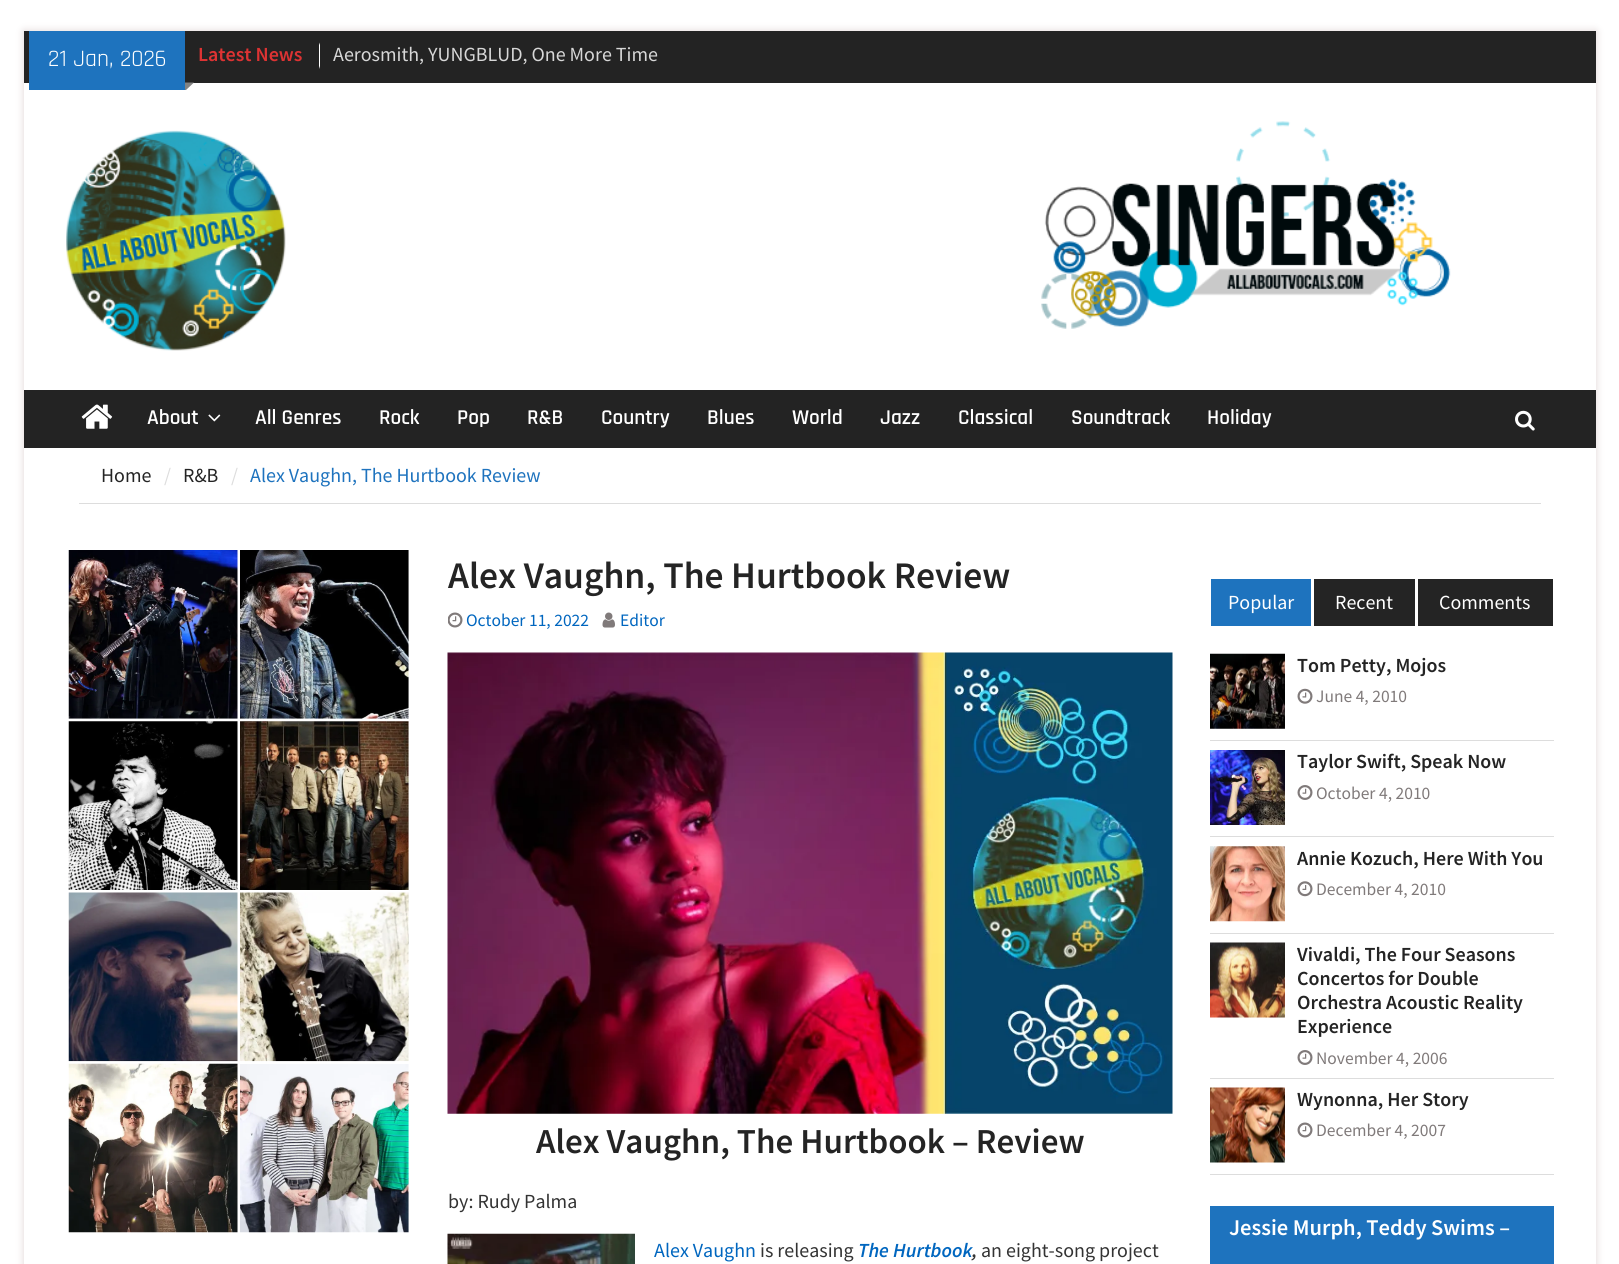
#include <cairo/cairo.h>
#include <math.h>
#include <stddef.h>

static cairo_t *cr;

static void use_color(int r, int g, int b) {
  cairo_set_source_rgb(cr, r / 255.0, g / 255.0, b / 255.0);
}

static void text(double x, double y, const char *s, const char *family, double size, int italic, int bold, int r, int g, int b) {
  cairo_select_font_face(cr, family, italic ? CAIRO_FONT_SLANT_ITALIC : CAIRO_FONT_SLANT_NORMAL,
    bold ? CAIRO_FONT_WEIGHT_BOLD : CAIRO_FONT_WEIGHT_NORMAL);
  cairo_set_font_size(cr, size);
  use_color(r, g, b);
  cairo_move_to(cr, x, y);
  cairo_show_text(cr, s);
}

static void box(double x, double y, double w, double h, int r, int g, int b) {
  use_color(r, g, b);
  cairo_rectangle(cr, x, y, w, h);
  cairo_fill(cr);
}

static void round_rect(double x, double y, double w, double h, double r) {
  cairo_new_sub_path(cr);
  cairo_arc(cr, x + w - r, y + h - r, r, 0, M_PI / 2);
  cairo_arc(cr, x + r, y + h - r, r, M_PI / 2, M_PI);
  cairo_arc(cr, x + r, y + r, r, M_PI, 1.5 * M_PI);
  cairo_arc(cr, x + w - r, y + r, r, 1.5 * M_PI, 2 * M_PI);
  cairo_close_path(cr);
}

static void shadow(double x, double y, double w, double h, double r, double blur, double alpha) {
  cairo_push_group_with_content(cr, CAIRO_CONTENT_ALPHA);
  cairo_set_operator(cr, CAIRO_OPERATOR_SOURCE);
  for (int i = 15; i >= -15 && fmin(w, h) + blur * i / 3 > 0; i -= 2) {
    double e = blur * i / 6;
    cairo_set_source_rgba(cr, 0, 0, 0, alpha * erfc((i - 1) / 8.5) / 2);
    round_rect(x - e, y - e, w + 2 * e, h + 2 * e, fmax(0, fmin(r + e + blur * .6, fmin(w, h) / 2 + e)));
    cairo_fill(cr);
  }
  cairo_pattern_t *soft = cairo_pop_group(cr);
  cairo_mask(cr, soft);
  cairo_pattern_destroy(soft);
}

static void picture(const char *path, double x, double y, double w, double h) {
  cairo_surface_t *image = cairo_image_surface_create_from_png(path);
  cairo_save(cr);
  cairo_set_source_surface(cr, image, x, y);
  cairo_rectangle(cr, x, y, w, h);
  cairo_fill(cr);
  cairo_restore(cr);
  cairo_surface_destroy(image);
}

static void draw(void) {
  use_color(255, 255, 255);
  cairo_paint(cr);
  use_color(224, 213, 213);
  shadow(24, 31, 1572, 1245, 0, 4, 1);
  box(24, 83, 1572, 1181, 255, 255, 255);
  box(24, 31, 1572, 52, 35, 35, 35);
  box(29, 31, 156, 59, 30, 115, 190);
  use_color(131, 131, 131);
  cairo_new_path(cr);
  cairo_move_to(cr, 185, 82.5);
  cairo_line_to(cr, 194, 82.5);
  cairo_line_to(cr, 186, 90);
  cairo_line_to(cr, 185, 90);
  cairo_close_path(cr);
  cairo_fill(cr);
  use_color(255, 255, 255);
  cairo_new_path(cr);
  cairo_move_to(cr, 319, 69);
  cairo_line_to(cr, 319, 42.5);
  cairo_line_to(cr, 320, 45);
  cairo_line_to(cr, 320, 66);
  cairo_close_path(cr);
  cairo_fill(cr);
  picture("img_01.png", 66, 130, 220, 221);
  picture("img_02.png", 1041, 121, 410, 208);
  box(24, 390, 1572, 58, 35, 35, 35);
  picture("img_03.png", 81, 404, 32, 25);
  picture("img_04.png", 208, 414, 13, 8);
  picture("img_05.png", 1515, 410, 20, 21);
  box(79, 503, 1462, 1, 221, 221, 221);
  picture("img_06.png", 68, 550, 170, 169);
  picture("img_07.png", 240, 550, 169, 169);
  picture("img_08.png", 68, 721, 170, 169);
  picture("img_09.png", 240, 721, 169, 169);
  picture("img_10.png", 68, 892, 170, 170);
  picture("img_11.png", 240, 892, 169, 170);
  picture("img_12.png", 68, 1063, 170, 170);
  picture("img_13.png", 240, 1064, 169, 169);
  picture("img_14.png", 448, 612, 15, 16);
  picture("img_15.png", 602, 612, 13, 16);
  picture("img_16.png", 447, 652, 726, 462);
  picture("img_17.png", 447, 1233, 188, 31);
  box(1211, 579, 100, 47, 30, 115, 190);
  box(1314, 579, 101, 47, 36, 36, 36);
  box(1418, 579, 135, 47, 36, 36, 36);
  box(1210, 740, 344, 1, 221, 221, 221);
  picture("img_18.png", 1210, 653, 75, 76);
  picture("img_19.png", 1297, 688, 16, 16);
  box(1210, 836, 344, 1, 221, 221, 221);
  picture("img_20.png", 1210, 750, 75, 75);
  picture("img_21.png", 1297, 785, 16, 15);
  box(1210, 933, 344, 1, 221, 221, 221);
  picture("img_22.png", 1210, 846, 75, 76);
  picture("img_23.png", 1297, 881, 16, 16);
  box(1210, 1078, 344, 1, 221, 221, 221);
  picture("img_24.png", 1210, 942, 75, 76);
  picture("img_21.png", 1297, 1050, 16, 15);
  box(1210, 1174, 344, 1, 221, 221, 221);
  picture("img_25.png", 1210, 1087, 75, 76);
  picture("img_26.png", 1297, 1122, 16, 16);
  box(1210, 1206, 344, 58, 30, 115, 190);
  text(48, 66, "21 Jan, 2026", "Rajdhani", 23.75, 0, 0, 255, 255, 255);
  text(198, 61, "Latest News", "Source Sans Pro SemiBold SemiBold", 20, 0, 0, 221, 51, 51);
  text(333, 61, "Aerosmith, YUNGBLUD, One More Time", "Source Sans Pro", 20, 0, 0, 215, 215, 215);
  text(147, 424, "About", "Rajdhani SemiBold", 21.25, 0, 0, 255, 255, 255);
  text(255, 424, "All Genres", "Rajdhani SemiBold", 21.25, 0, 0, 255, 255, 255);
  text(379, 424, "Rock", "Rajdhani SemiBold", 21.25, 0, 0, 255, 255, 255);
  text(457, 424, "Pop", "Rajdhani SemiBold", 21.25, 0, 0, 255, 255, 255);
  text(527, 424, "R&B", "Rajdhani SemiBold", 21.25, 0, 0, 255, 255, 255);
  text(601, 424, "Country", "Rajdhani SemiBold", 21.25, 0, 0, 255, 255, 255);
  text(707, 424, "Blues", "Rajdhani SemiBold", 21.25, 0, 0, 255, 255, 255);
  text(792, 424, "World", "Rajdhani SemiBold", 21.25, 0, 0, 255, 255, 255);
  text(880, 424, "Jazz", "Rajdhani SemiBold", 21.25, 0, 0, 255, 255, 255);
  text(958, 424, "Classical", "Rajdhani SemiBold", 21.25, 0, 0, 255, 255, 255);
  text(1071, 424, "Soundtrack", "Rajdhani SemiBold", 21.25, 0, 0, 255, 255, 255);
  text(1207, 424, "Holiday", "Rajdhani SemiBold", 21.25, 0, 0, 255, 255, 255);
  text(101, 482, "Home", "Source Sans Pro", 20, 0, 0, 36, 36, 36);
  text(164, 482, "/", "Source Sans Pro", 20, 0, 0, 221, 221, 221);
  text(183, 482, "R&B", "Source Sans Pro", 20, 0, 0, 36, 36, 36);
  text(231, 482, "/", "Source Sans Pro", 20, 0, 0, 221, 221, 221);
  text(250, 482, "Alex Vaughn, The Hurtbook Review", "Source Sans Pro", 20, 0, 0, 30, 115, 190);
  text(448, 588, "Alex Vaughn, The Hurtbook Review", "Source Sans Pro SemiBold SemiBold", 37.5, 0, 0, 36, 36, 36);
  text(466, 626, "October 11, 2022", "Source Sans Pro", 17.5, 0, 0, 0, 102, 191);
  text(620, 626, "Editor", "Source Sans Pro", 17.5, 0, 0, 0, 102, 191);
  text(536, 1153, "Alex Vaughn, The Hurtbook – Review", "Source Sans Pro SemiBold SemiBold", 35, 0, 0, 36, 36, 36);
  text(448, 1208, "by: Rudy Palma", "Source Sans Pro", 20, 0, 0, 51, 51, 51);
  text(654, 1257, "Alex Vaughn", "Source Sans Pro", 20, 0, 0, 0, 102, 191);
  text(760, 1257, "is releasing", "Source Sans Pro", 20, 0, 0, 51, 51, 51);
  text(858, 1257, "The Hurtbook", "Source Sans Pro SemiBold SemiBold", 20, 1, 0, 0, 102, 191);
  text(972, 1257, ",", "Source Sans Pro SemiBold SemiBold", 20, 1, 0, 51, 51, 51);
  text(981, 1257, "an eight-song project", "Source Sans Pro", 20, 0, 0, 51, 51, 51);
  text(1228, 609, "Popular", "Source Sans Pro", 20, 0, 0, 255, 255, 255);
  text(1335, 609, "Recent", "Source Sans Pro", 20, 0, 0, 255, 255, 255);
  text(1439, 609, "Comments", "Source Sans Pro", 20, 0, 0, 255, 255, 255);
  text(1297, 672, "Tom Petty, Mojos", "Source Sans Pro SemiBold SemiBold", 20, 0, 0, 36, 36, 36);
  text(1316, 702, "June 4, 2010", "Source Sans Pro", 17.5, 0, 0, 128, 122, 122);
  text(1297, 768, "Taylor Swift, Speak Now", "Source Sans Pro SemiBold SemiBold", 20, 0, 0, 36, 36, 36);
  text(1316, 799, "October 4, 2010", "Source Sans Pro", 17.5, 0, 0, 128, 122, 122);
  text(1297, 865, "Annie Kozuch, Here With You", "Source Sans Pro SemiBold SemiBold", 20, 0, 0, 36, 36, 36);
  text(1316, 895, "December 4, 2010", "Source Sans Pro", 17.5, 0, 0, 128, 122, 122);
  text(1297, 961, "Vivaldi, The Four Seasons", "Source Sans Pro SemiBold SemiBold", 20, 0, 0, 36, 36, 36);
  text(1297, 985, "Concertos for Double", "Source Sans Pro SemiBold SemiBold", 20, 0, 0, 36, 36, 36);
  text(1297, 1009, "Orchestra Acoustic Reality", "Source Sans Pro SemiBold SemiBold", 20, 0, 0, 36, 36, 36);
  text(1297, 1033, "Experience", "Source Sans Pro SemiBold SemiBold", 20, 0, 0, 36, 36, 36);
  text(1316, 1064, "November 4, 2006", "Source Sans Pro", 17.5, 0, 0, 128, 122, 122);
  text(1297, 1106, "Wynonna, Her Story", "Source Sans Pro SemiBold SemiBold", 20, 0, 0, 36, 36, 36);
  text(1316, 1136, "December 4, 2007", "Source Sans Pro", 17.5, 0, 0, 128, 122, 122);
  text(1229, 1235, "Jessie Murph, Teddy Swims –", "Source Sans Pro SemiBold SemiBold", 22.5, 0, 0, 255, 255, 255);
}

int main(void) {
  cairo_surface_t *surface = cairo_image_surface_create(CAIRO_FORMAT_RGB24, 1619, 1264);
  cr = cairo_create(surface);
  cairo_font_options_t *options = cairo_font_options_create();
  cairo_font_options_set_hint_metrics(options, CAIRO_HINT_METRICS_OFF);
  cairo_font_options_set_hint_style(options, CAIRO_HINT_STYLE_NONE);
  cairo_set_font_options(cr, options);
  cairo_set_miter_limit(cr, 4);
  draw();
  cairo_surface_write_to_png(surface, "out.png");
  cairo_font_options_destroy(options);
  cairo_destroy(cr);
  cairo_surface_destroy(surface);
  return 0;
}
